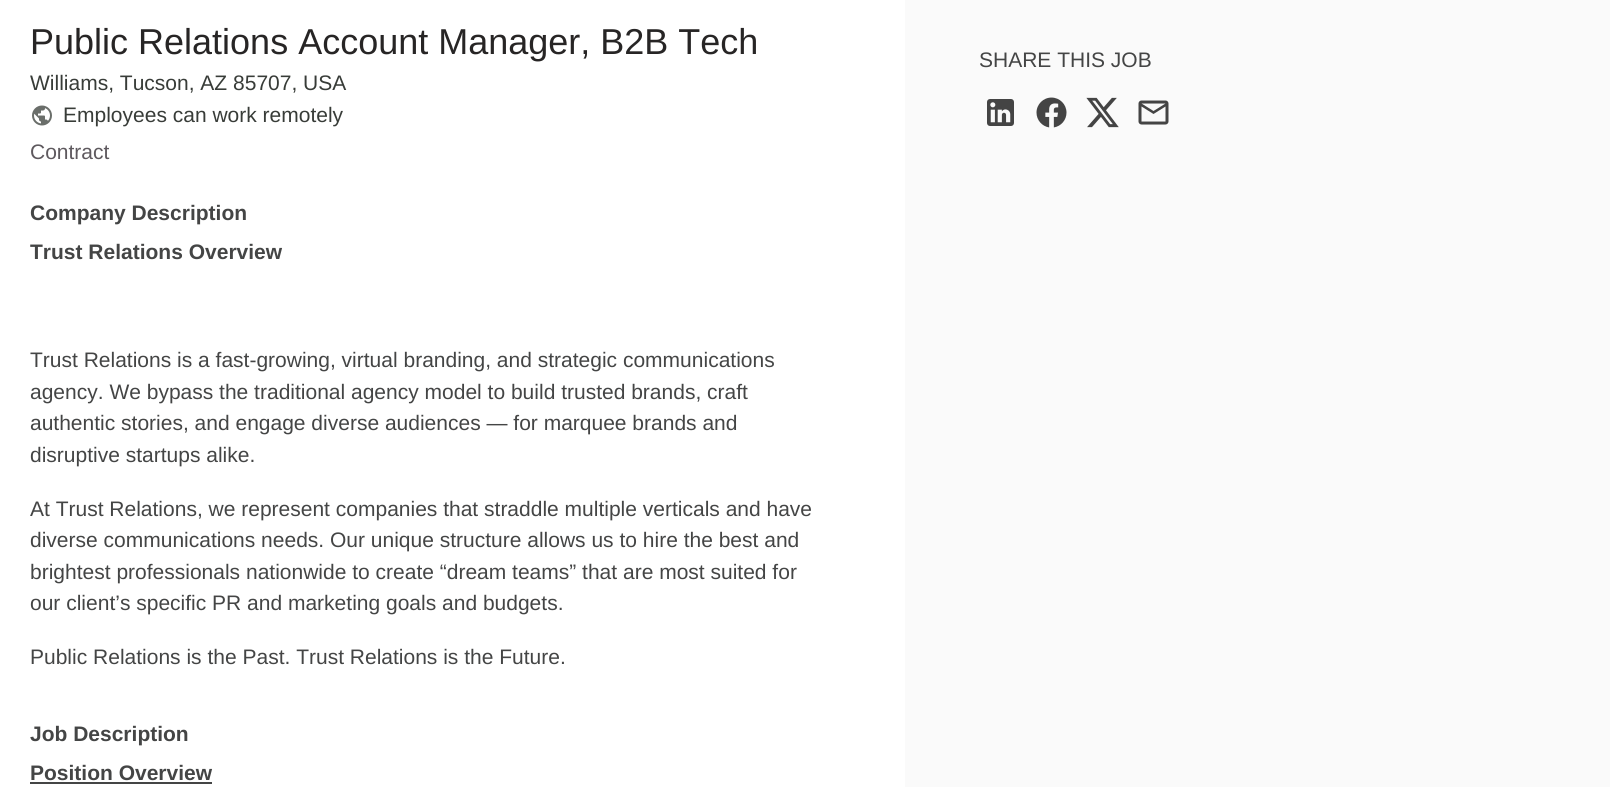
#include <cairo/cairo.h>
#include <math.h>
#include <stddef.h>

static cairo_t *cr;

static void use_color(int r, int g, int b) {
  cairo_set_source_rgb(cr, r / 255.0, g / 255.0, b / 255.0);
}

static void text(double x, double y, const char *s, const char *family, double size, int italic, int bold, int r, int g, int b) {
  cairo_select_font_face(cr, family, italic ? CAIRO_FONT_SLANT_ITALIC : CAIRO_FONT_SLANT_NORMAL,
    bold ? CAIRO_FONT_WEIGHT_BOLD : CAIRO_FONT_WEIGHT_NORMAL);
  cairo_set_font_size(cr, size);
  use_color(r, g, b);
  cairo_move_to(cr, x, y);
  cairo_show_text(cr, s);
}

static void box(double x, double y, double w, double h, int r, int g, int b) {
  use_color(r, g, b);
  cairo_rectangle(cr, x, y, w, h);
  cairo_fill(cr);
}

static void picture(const char *path, double x, double y, double w, double h) {
  cairo_surface_t *image = cairo_image_surface_create_from_png(path);
  cairo_save(cr);
  cairo_set_source_surface(cr, image, x, y);
  cairo_rectangle(cr, x, y, w, h);
  cairo_fill(cr);
  cairo_restore(cr);
  cairo_surface_destroy(image);
}

static void draw(void) {
  use_color(255, 255, 255);
  cairo_paint(cr);
  picture("img_01.png", 32, 105, 20, 21);
  box(30, 782, 182, 2, 68, 69, 69);
  box(905, 0, 705, 787, 250, 250, 250);
  picture("img_02.png", 987, 99, 27, 27);
  picture("img_03.png", 1036, 97, 31, 31);
  picture("img_04.png", 1086, 97, 33, 31);
  picture("img_05.png", 1138, 100, 31, 25);
  text(30, 54, "Public Relations Account Manager, B2B Tech", "Liberation Sans", 36, 0, 0, 39, 37, 37);
  text(30, 90, "Williams, Tucson, AZ 85707, USA", "Liberation Sans", 21, 0, 0, 56, 60, 56);
  text(63, 122, "Employees can work remotely", "Liberation Sans", 21, 0, 0, 56, 60, 56);
  text(30, 159, "Contract", "Liberation Sans", 21, 0, 0, 94, 89, 94);
  text(30, 220, "Company Description", "Liberation Sans", 21, 0, 1, 68, 69, 69);
  text(30, 259, "Trust Relations Overview", "Liberation Sans", 21, 0, 1, 68, 69, 69);
  text(30, 367, "Trust Relations is a fast-growing, virtual branding, and strategic communications", "Liberation Sans", 21, 0, 0, 68, 69, 69);
  text(30, 399, "agency. We bypass the traditional agency model to build trusted brands, craft", "Liberation Sans", 21, 0, 0, 68, 69, 69);
  text(30, 430, "authentic stories, and engage diverse audiences — for marquee brands and", "Liberation Sans", 21, 0, 0, 68, 69, 69);
  text(30, 462, "disruptive startups alike.", "Liberation Sans", 21, 0, 0, 68, 69, 69);
  text(30, 516, "At Trust Relations, we represent companies that straddle multiple verticals and have", "Liberation Sans", 21, 0, 0, 68, 69, 69);
  text(30, 547, "diverse communications needs. Our unique structure allows us to hire the best and", "Liberation Sans", 21, 0, 0, 68, 69, 69);
  text(30, 579, "brightest professionals nationwide to create “dream teams” that are most suited for", "Liberation Sans", 21, 0, 0, 68, 69, 69);
  text(30, 610, "our client’s specific PR and marketing goals and budgets.", "Liberation Sans", 21, 0, 0, 68, 69, 69);
  text(30, 664, "Public Relations is the Past. Trust Relations is the Future.", "Liberation Sans", 21, 0, 0, 68, 69, 69);
  text(30, 741, "Job Description", "Liberation Sans", 21, 0, 1, 68, 69, 69);
  text(30, 780, "Position Overview", "Liberation Sans", 21, 0, 1, 68, 69, 69);
  text(979, 67, "SHARE THIS JOB", "Liberation Sans", 21, 0, 0, 68, 69, 69);
}

int main(void) {
  cairo_surface_t *surface = cairo_image_surface_create(CAIRO_FORMAT_RGB24, 1610, 787);
  cr = cairo_create(surface);
  cairo_font_options_t *options = cairo_font_options_create();
  cairo_font_options_set_hint_metrics(options, CAIRO_HINT_METRICS_OFF);
  cairo_font_options_set_hint_style(options, CAIRO_HINT_STYLE_NONE);
  cairo_set_font_options(cr, options);
  cairo_set_miter_limit(cr, 4);
  draw();
  cairo_surface_write_to_png(surface, "out.png");
  cairo_font_options_destroy(options);
  cairo_destroy(cr);
  cairo_surface_destroy(surface);
  return 0;
}
